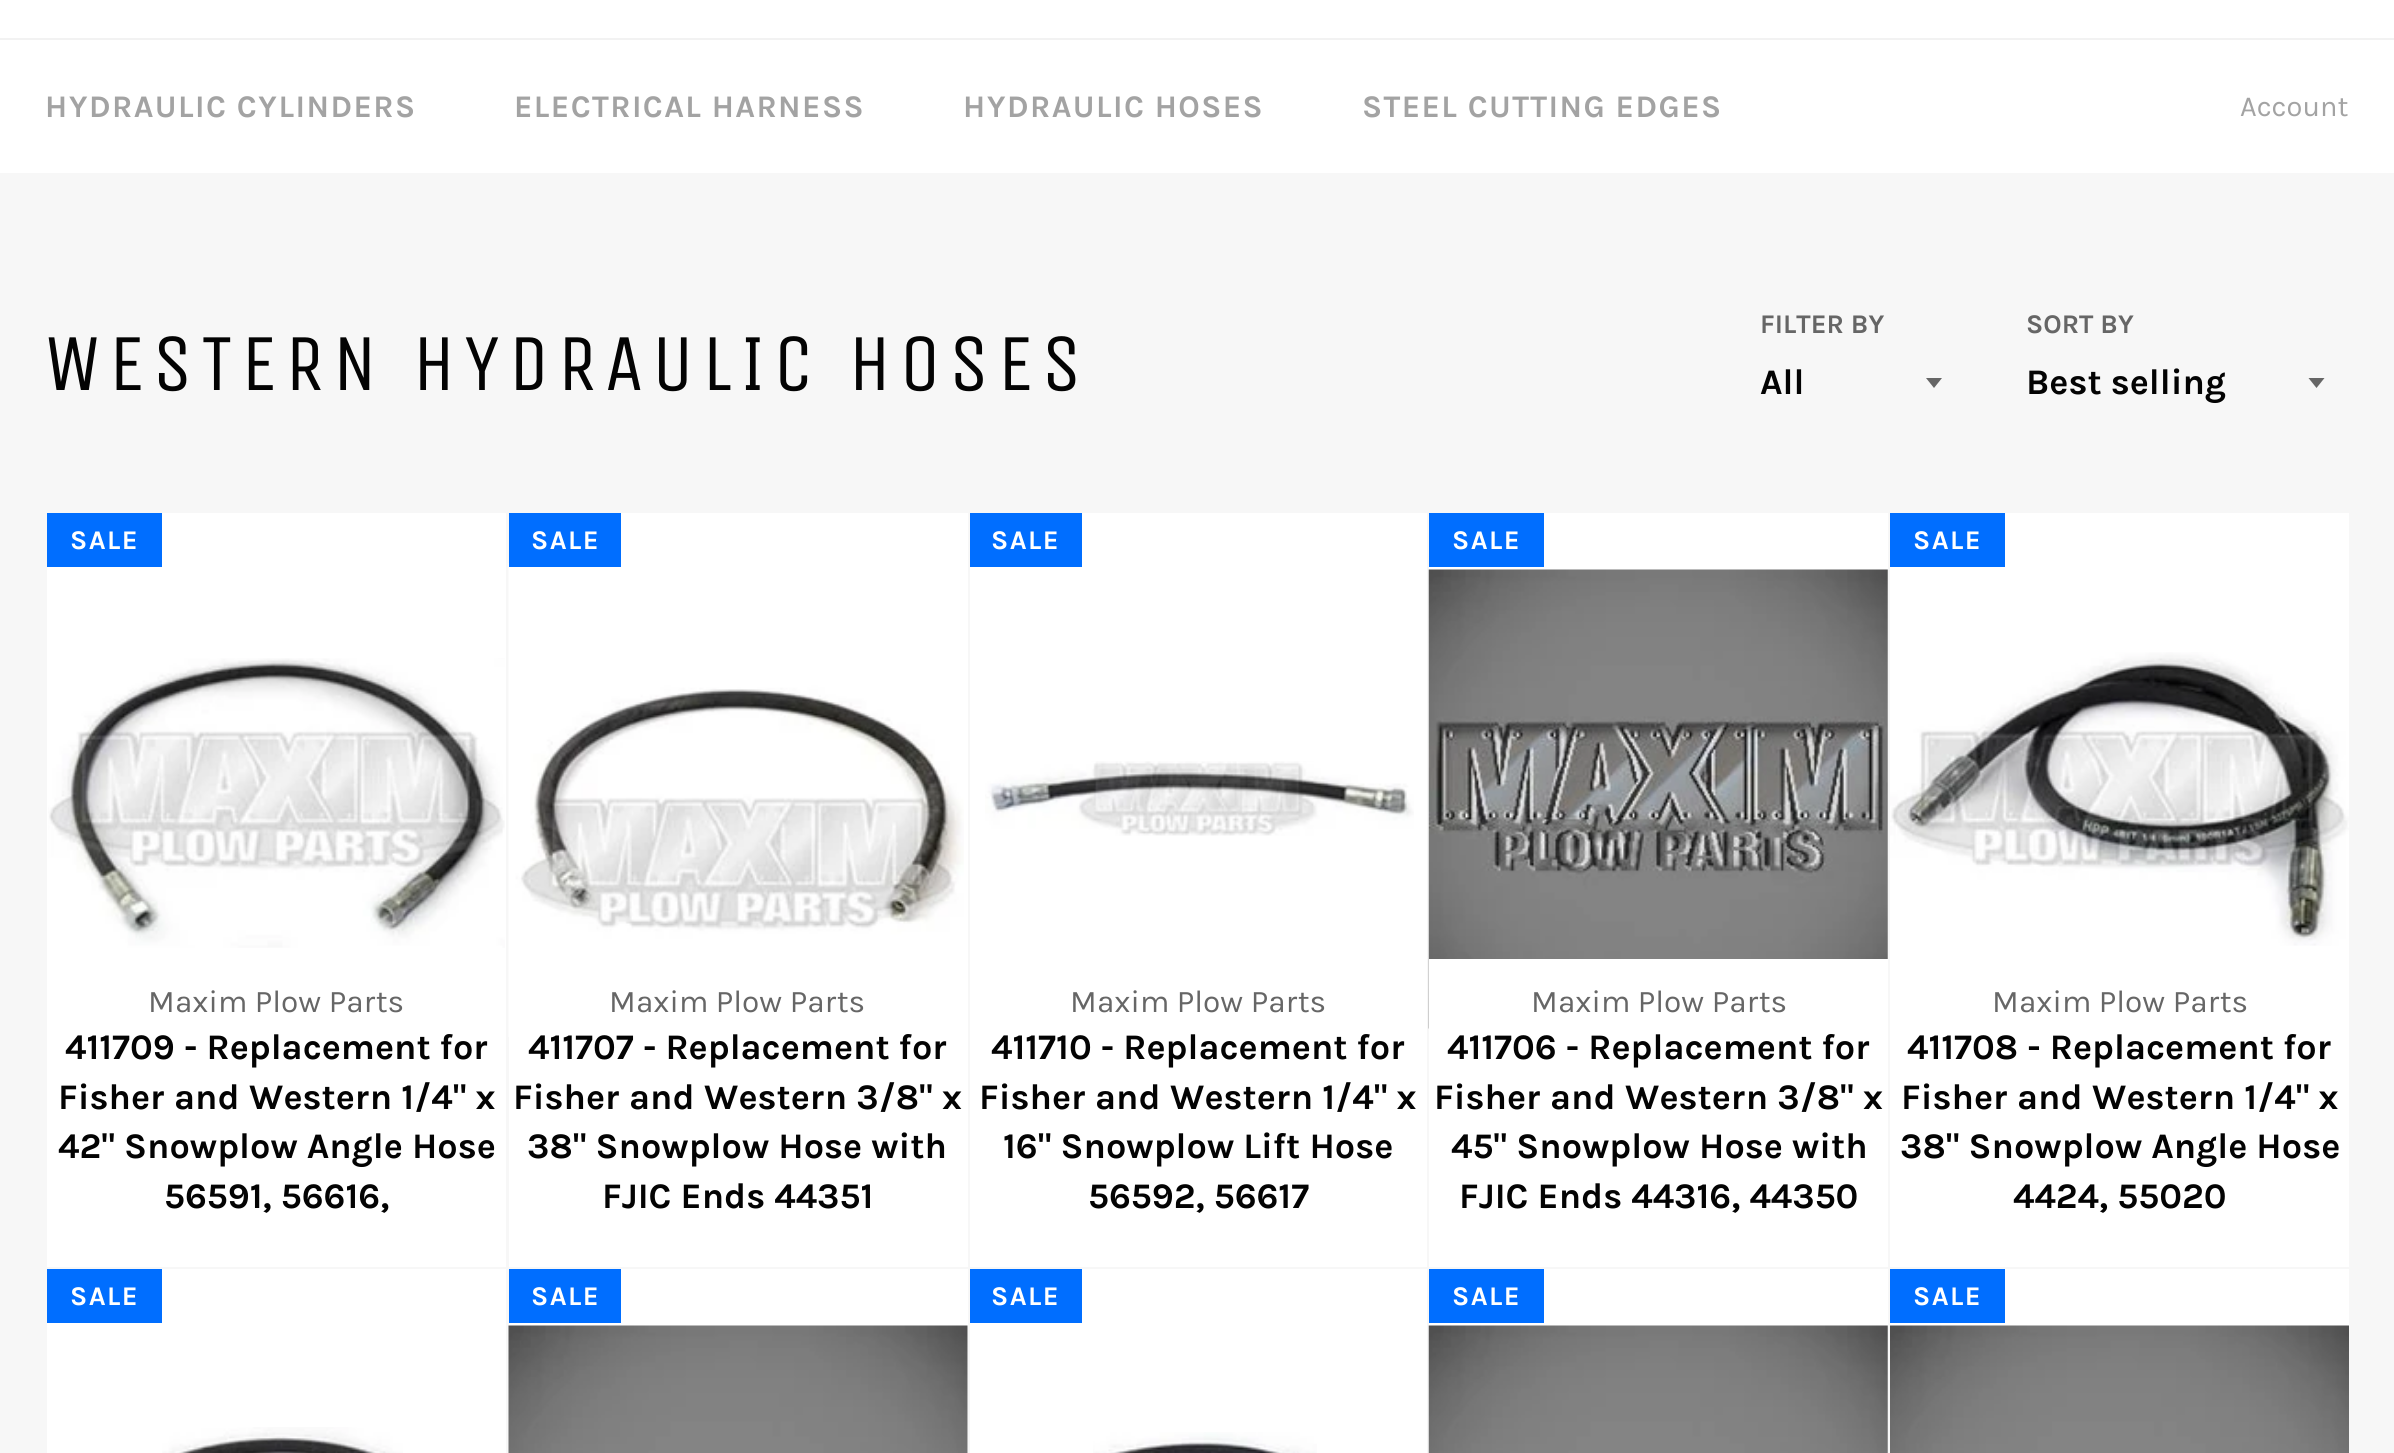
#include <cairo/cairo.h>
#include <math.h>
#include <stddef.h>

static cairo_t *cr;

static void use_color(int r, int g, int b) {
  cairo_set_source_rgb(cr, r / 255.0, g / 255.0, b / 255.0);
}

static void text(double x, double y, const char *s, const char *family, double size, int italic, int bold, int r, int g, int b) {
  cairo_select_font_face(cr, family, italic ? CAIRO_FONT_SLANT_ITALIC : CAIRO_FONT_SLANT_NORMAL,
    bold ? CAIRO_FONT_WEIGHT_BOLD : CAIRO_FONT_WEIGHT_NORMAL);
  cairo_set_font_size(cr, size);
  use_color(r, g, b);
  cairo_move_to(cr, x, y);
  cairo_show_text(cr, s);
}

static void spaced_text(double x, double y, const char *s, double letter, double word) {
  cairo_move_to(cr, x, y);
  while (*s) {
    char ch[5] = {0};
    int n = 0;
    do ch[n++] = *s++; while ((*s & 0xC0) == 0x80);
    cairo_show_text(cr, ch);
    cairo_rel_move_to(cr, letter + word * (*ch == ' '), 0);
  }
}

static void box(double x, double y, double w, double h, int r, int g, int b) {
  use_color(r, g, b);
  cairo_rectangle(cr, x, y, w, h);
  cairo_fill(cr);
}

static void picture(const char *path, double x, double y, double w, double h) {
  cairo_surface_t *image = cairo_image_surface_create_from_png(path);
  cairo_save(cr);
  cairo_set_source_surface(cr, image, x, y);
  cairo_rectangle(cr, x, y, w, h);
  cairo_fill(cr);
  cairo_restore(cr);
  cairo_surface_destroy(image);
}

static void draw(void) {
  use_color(247, 247, 247);
  cairo_paint(cr);
  box(0, 0, 2394, 38, 255, 255, 255);
  box(0, 40, 2394, 133, 255, 255, 255);
  box(0, 38, 2394, 2, 242, 242, 242);
  use_color(102, 102, 102);
  cairo_new_path(cr);
  cairo_move_to(cr, 1926, 378);
  cairo_line_to(cr, 1934, 388);
  cairo_line_to(cr, 1942, 378);
  cairo_close_path(cr);
  cairo_fill(cr);
  cairo_new_path(cr);
  cairo_move_to(cr, 2308.5, 378);
  cairo_line_to(cr, 2316.5, 388);
  cairo_line_to(cr, 2324.5, 378);
  cairo_close_path(cr);
  cairo_fill(cr);
  box(47, 513, 459, 754, 255, 255, 255);
  box(47, 513, 115, 54, 0, 110, 255);
  picture("img_01.png", 48, 658, 457, 290);
  box(509, 513, 459, 754, 255, 255, 255);
  picture("img_02.png", 508, 563, 456, 474);
  box(509, 513, 112, 54, 0, 110, 255);
  box(970, 513, 457, 754, 255, 255, 255);
  box(970, 513, 112, 54, 0, 110, 255);
  picture("img_03.png", 985, 761, 429, 75);
  box(1429, 513, 459, 446, 255, 255, 255);
  box(1429, 513, 115, 54, 0, 110, 255);
  picture("img_04.png", 1428, 569, 460, 460);
  box(1429, 959, 459, 308, 255, 255, 255);
  box(1890, 513, 459, 754, 255, 255, 255);
  box(1890, 513, 115, 54, 0, 110, 255);
  picture("img_05.png", 1890, 652, 459, 294);
  box(47, 1269, 459, 184, 255, 255, 255);
  box(47, 1269, 115, 54, 0, 110, 255);
  picture("img_06.png", 162, 1427, 241, 26);
  box(509, 1269, 459, 184, 255, 255, 255);
  box(509, 1269, 112, 54, 0, 110, 255);
  picture("img_07.png", 508, 1325, 460, 128);
  box(970, 1269, 457, 184, 255, 255, 255);
  box(970, 1269, 112, 54, 0, 110, 255);
  picture("img_08.png", 1093, 1432, 224, 21);
  box(1429, 1269, 459, 184, 255, 255, 255);
  box(1429, 1269, 115, 54, 0, 110, 255);
  picture("img_09.png", 1428, 1325, 460, 128);
  box(1890, 1269, 459, 57, 255, 255, 255);
  box(1890, 1269, 115, 54, 0, 110, 255);
  picture("img_10.png", 1890, 1325, 459, 128);
  cairo_select_font_face(cr, "Karla", CAIRO_FONT_SLANT_NORMAL, CAIRO_FONT_WEIGHT_BOLD);
  cairo_set_font_size(cr, 31.5);
  use_color(163, 163, 163);
  spaced_text(45, 117, "HYDRAULIC CYLINDERS", 1.4, 0);
  spaced_text(514, 117, "ELECTRICAL HARNESS", 1.4, 0);
  spaced_text(963, 117, "HYDRAULIC HOSES", 1.4, 0);
  spaced_text(1362, 117, "STEEL CUTTING EDGES", 1.4, 0);
  text(2240, 116, "Account", "Karla", 29, 0, 0, 163, 163, 163);
  cairo_select_font_face(cr, "Unica One", CAIRO_FONT_SLANT_NORMAL, CAIRO_FONT_WEIGHT_NORMAL);
  cairo_set_font_size(cr, 81);
  use_color(3, 3, 3);
  spaced_text(45, 390, "WESTERN HYDRAULIC HOSES", 8.1, 0);
  text(1760, 333, "FILTER BY", "Karla", 27, 0, 1, 102, 102, 102);
  text(1760, 394, "All", "Karla", 36, 0, 1, 3, 3, 3);
  text(2026, 333, "SORT BY", "Karla", 27, 0, 1, 102, 102, 102);
  text(2026, 394, "Best selling", "Karla", 36, 0, 1, 3, 3, 3);
  cairo_set_font_size(cr, 27);
  use_color(255, 255, 255);
  spaced_text(70, 549, "SALE", 1.4, 0);
  text(148, 1012, "Maxim Plow Parts", "Karla", 31.5, 0, 0, 102, 102, 102);
  text(65, 1059, "411709 - Replacement for", "Karla", 36, 0, 1, 3, 3, 3);
  text(58, 1109, "Fisher and Western 1/4\" x", "Karla", 36, 0, 1, 3, 3, 3);
  text(58, 1158, "42\" Snowplow Angle Hose", "Karla", 36, 0, 1, 3, 3, 3);
  text(164, 1208, "56591, 56616,", "Karla", 36, 0, 1, 3, 3, 3);
  cairo_set_font_size(cr, 27);
  use_color(255, 255, 255);
  spaced_text(531, 549, "SALE", 1.4, 0);
  text(609, 1012, "Maxim Plow Parts", "Karla", 31.5, 0, 0, 102, 102, 102);
  text(528, 1059, "411707 - Replacement for", "Karla", 36, 0, 1, 3, 3, 3);
  text(513, 1109, "Fisher and Western 3/8\" x", "Karla", 36, 0, 1, 3, 3, 3);
  text(527, 1158, "38\" Snowplow Hose with", "Karla", 36, 0, 1, 3, 3, 3);
  text(602, 1208, "FJIC Ends 44351", "Karla", 36, 0, 1, 3, 3, 3);
  cairo_set_font_size(cr, 27);
  use_color(255, 255, 255);
  spaced_text(991, 549, "SALE", 1.4, 0);
  text(1070, 1012, "Maxim Plow Parts", "Karla", 31.5, 0, 0, 102, 102, 102);
  text(991, 1059, "411710 - Replacement for", "Karla", 36, 0, 1, 3, 3, 3);
  text(979, 1109, "Fisher and Western 1/4\" x", "Karla", 36, 0, 1, 3, 3, 3);
  text(1003, 1158, "16\" Snowplow Lift Hose", "Karla", 36, 0, 1, 3, 3, 3);
  text(1088, 1208, "56592, 56617", "Karla", 36, 0, 1, 3, 3, 3);
  cairo_set_font_size(cr, 27);
  use_color(255, 255, 255);
  spaced_text(1452, 549, "SALE", 1.4, 0);
  text(1531, 1012, "Maxim Plow Parts", "Karla", 31.5, 0, 0, 102, 102, 102);
  text(1447, 1059, "411706 - Replacement for", "Karla", 36, 0, 1, 3, 3, 3);
  text(1434, 1109, "Fisher and Western 3/8\" x", "Karla", 36, 0, 1, 3, 3, 3);
  text(1451, 1158, "45\" Snowplow Hose with", "Karla", 36, 0, 1, 3, 3, 3);
  text(1459, 1208, "FJIC Ends 44316, 44350", "Karla", 36, 0, 1, 3, 3, 3);
  cairo_set_font_size(cr, 27);
  use_color(255, 255, 255);
  spaced_text(1913, 549, "SALE", 1.4, 0);
  text(1992, 1012, "Maxim Plow Parts", "Karla", 31.5, 0, 0, 102, 102, 102);
  text(1907, 1059, "411708 - Replacement for", "Karla", 36, 0, 1, 3, 3, 3);
  text(1901, 1109, "Fisher and Western 1/4\" x", "Karla", 36, 0, 1, 3, 3, 3);
  text(1900, 1158, "38\" Snowplow Angle Hose", "Karla", 36, 0, 1, 3, 3, 3);
  text(2013, 1208, "4424, 55020", "Karla", 36, 0, 1, 3, 3, 3);
  cairo_set_font_size(cr, 27);
  use_color(255, 255, 255);
  spaced_text(70, 1305, "SALE", 1.4, 0);
  spaced_text(531, 1305, "SALE", 1.4, 0);
  spaced_text(991, 1305, "SALE", 1.4, 0);
  spaced_text(1452, 1305, "SALE", 1.4, 0);
  spaced_text(1913, 1305, "SALE", 1.4, 0);
}

int main(void) {
  cairo_surface_t *surface = cairo_image_surface_create(CAIRO_FORMAT_RGB24, 2394, 1453);
  cr = cairo_create(surface);
  cairo_font_options_t *options = cairo_font_options_create();
  cairo_font_options_set_hint_metrics(options, CAIRO_HINT_METRICS_OFF);
  cairo_font_options_set_hint_style(options, CAIRO_HINT_STYLE_NONE);
  cairo_set_font_options(cr, options);
  cairo_set_miter_limit(cr, 4);
  draw();
  cairo_surface_write_to_png(surface, "out.png");
  cairo_font_options_destroy(options);
  cairo_destroy(cr);
  cairo_surface_destroy(surface);
  return 0;
}
